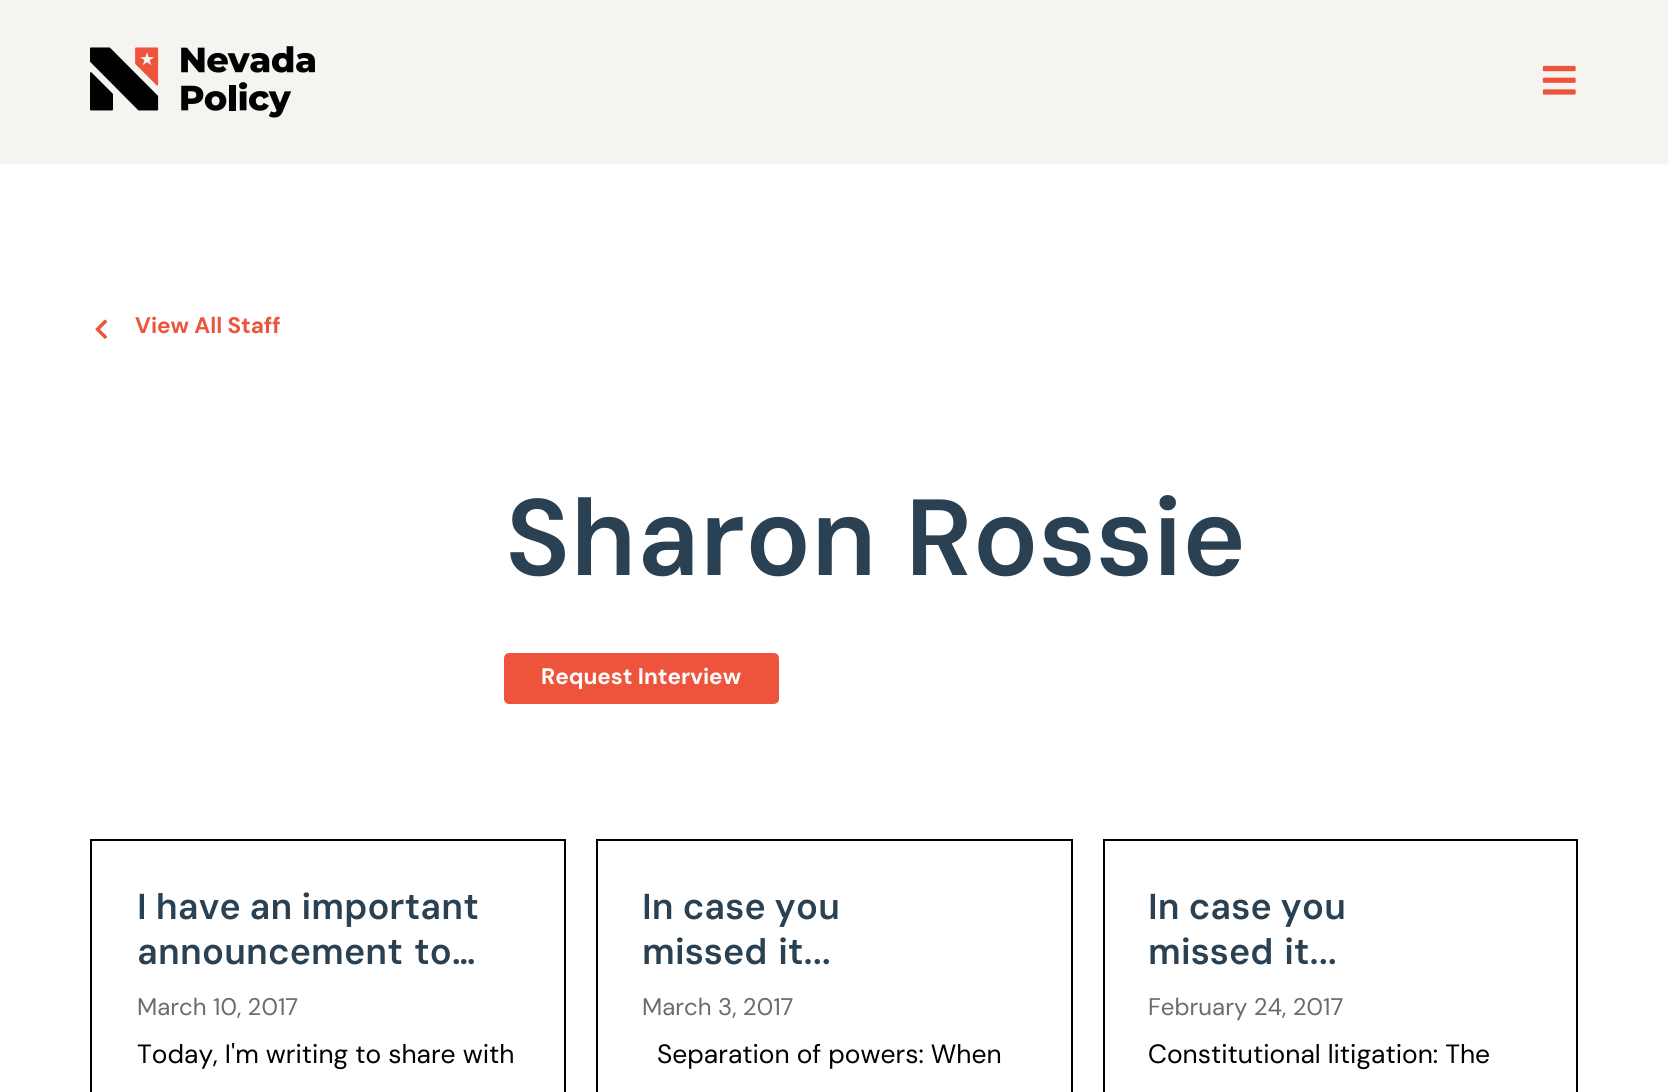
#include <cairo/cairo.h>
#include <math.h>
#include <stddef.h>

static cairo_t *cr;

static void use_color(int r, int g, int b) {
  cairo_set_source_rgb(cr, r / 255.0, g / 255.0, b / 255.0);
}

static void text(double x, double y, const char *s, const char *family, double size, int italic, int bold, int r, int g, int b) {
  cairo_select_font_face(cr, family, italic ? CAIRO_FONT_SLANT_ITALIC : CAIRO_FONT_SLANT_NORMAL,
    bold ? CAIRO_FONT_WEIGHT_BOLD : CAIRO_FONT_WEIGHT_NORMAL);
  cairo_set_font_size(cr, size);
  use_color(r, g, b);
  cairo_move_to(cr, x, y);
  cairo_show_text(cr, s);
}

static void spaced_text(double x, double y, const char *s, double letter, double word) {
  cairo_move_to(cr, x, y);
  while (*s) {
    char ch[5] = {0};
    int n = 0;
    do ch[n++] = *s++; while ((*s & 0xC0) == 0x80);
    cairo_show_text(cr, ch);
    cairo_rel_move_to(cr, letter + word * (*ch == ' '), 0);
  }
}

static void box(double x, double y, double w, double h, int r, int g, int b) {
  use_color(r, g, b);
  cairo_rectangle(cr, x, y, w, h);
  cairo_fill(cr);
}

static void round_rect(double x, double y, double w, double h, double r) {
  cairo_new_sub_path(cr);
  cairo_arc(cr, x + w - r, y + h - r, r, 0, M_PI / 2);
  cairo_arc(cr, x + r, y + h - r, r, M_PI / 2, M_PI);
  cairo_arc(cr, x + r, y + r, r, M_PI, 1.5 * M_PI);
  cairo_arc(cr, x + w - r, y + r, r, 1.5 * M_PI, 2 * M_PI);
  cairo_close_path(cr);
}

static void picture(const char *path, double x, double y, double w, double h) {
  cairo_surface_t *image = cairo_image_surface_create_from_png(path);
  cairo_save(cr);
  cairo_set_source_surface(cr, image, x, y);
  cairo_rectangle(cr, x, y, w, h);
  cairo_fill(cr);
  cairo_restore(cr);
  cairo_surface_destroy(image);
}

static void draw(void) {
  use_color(255, 255, 255);
  cairo_paint(cr);
  box(0, 0, 1668, 164, 245, 244, 240);
  picture("img_01.png", 90, 46, 225, 72);
  picture("img_02.png", 1542, 65, 34, 30);
  picture("img_03.png", 95, 319, 13, 20);
  use_color(238, 84, 60);
  round_rect(505.5, 654.5, 272, 48, 3.5);
  cairo_fill_preserve(cr);
  cairo_set_line_width(cr, 3);
  cairo_stroke(cr);
  cairo_rectangle(cr, 91, 840, 474, 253);
  use_color(0, 0, 0);
  cairo_set_line_width(cr, 2);
  cairo_stroke(cr);
  cairo_rectangle(cr, 597, 840, 475, 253);
  cairo_stroke(cr);
  cairo_rectangle(cr, 1104, 840, 473, 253);
  cairo_stroke(cr);
  text(135, 333, "View All Staff", "DM Sans", 22.5, 0, 1, 238, 84, 60);
  cairo_select_font_face(cr, "DM Sans SemiBold", CAIRO_FONT_SLANT_NORMAL, CAIRO_FONT_WEIGHT_NORMAL);
  cairo_set_font_size(cr, 108);
  use_color(42, 65, 83);
  spaced_text(505, 575, "Sharon Rossie", 0, 1);
  text(541, 684, "Request Interview", "DM Sans", 22.5, 0, 1, 255, 255, 255);
  text(137, 919, "I have an important", "DM Sans SemiBold", 36, 0, 0, 42, 65, 83);
  spaced_text(137, 964, "announcement to…", 0, 2);
  text(137, 1015, "March 10, 2017", "DM Sans", 24, 0, 0, 107, 107, 107);
  text(137, 1063, "Today, I'm writing to share with", "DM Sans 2", 26.4, 0, 0, 0, 0, 0);
  text(642, 919, "In case you", "DM Sans SemiBold", 36, 0, 0, 42, 65, 83);
  spaced_text(642, 964, "missed it...", 0, 2);
  text(642, 1015, "March 3, 2017", "DM Sans", 24, 0, 0, 107, 107, 107);
  text(657, 1063, "Separation of powers: When", "DM Sans 2", 26.4, 0, 0, 0, 0, 0);
  text(1148, 919, "In case you", "DM Sans SemiBold", 36, 0, 0, 42, 65, 83);
  spaced_text(1148, 964, "missed it...", 0, 2);
  text(1148, 1015, "February 24, 2017", "DM Sans", 24, 0, 0, 107, 107, 107);
  text(1148, 1063, "Constitutional litigation: The", "DM Sans 2", 26.4, 0, 0, 0, 0, 0);
}

int main(void) {
  cairo_surface_t *surface = cairo_image_surface_create(CAIRO_FORMAT_RGB24, 1668, 1092);
  cr = cairo_create(surface);
  cairo_font_options_t *options = cairo_font_options_create();
  cairo_font_options_set_hint_metrics(options, CAIRO_HINT_METRICS_OFF);
  cairo_font_options_set_hint_style(options, CAIRO_HINT_STYLE_NONE);
  cairo_set_font_options(cr, options);
  cairo_set_miter_limit(cr, 4);
  draw();
  cairo_surface_write_to_png(surface, "out.png");
  cairo_font_options_destroy(options);
  cairo_destroy(cr);
  cairo_surface_destroy(surface);
  return 0;
}
